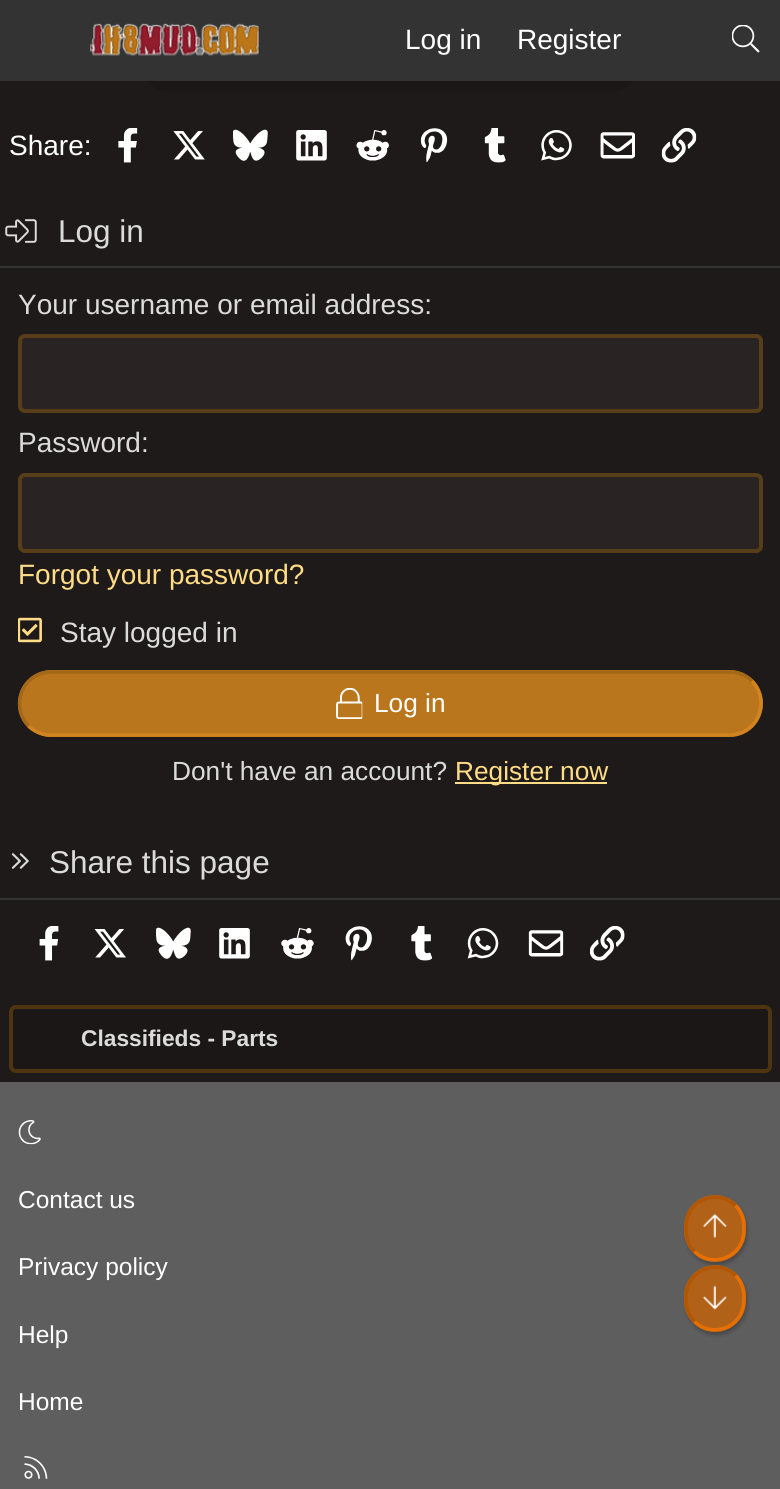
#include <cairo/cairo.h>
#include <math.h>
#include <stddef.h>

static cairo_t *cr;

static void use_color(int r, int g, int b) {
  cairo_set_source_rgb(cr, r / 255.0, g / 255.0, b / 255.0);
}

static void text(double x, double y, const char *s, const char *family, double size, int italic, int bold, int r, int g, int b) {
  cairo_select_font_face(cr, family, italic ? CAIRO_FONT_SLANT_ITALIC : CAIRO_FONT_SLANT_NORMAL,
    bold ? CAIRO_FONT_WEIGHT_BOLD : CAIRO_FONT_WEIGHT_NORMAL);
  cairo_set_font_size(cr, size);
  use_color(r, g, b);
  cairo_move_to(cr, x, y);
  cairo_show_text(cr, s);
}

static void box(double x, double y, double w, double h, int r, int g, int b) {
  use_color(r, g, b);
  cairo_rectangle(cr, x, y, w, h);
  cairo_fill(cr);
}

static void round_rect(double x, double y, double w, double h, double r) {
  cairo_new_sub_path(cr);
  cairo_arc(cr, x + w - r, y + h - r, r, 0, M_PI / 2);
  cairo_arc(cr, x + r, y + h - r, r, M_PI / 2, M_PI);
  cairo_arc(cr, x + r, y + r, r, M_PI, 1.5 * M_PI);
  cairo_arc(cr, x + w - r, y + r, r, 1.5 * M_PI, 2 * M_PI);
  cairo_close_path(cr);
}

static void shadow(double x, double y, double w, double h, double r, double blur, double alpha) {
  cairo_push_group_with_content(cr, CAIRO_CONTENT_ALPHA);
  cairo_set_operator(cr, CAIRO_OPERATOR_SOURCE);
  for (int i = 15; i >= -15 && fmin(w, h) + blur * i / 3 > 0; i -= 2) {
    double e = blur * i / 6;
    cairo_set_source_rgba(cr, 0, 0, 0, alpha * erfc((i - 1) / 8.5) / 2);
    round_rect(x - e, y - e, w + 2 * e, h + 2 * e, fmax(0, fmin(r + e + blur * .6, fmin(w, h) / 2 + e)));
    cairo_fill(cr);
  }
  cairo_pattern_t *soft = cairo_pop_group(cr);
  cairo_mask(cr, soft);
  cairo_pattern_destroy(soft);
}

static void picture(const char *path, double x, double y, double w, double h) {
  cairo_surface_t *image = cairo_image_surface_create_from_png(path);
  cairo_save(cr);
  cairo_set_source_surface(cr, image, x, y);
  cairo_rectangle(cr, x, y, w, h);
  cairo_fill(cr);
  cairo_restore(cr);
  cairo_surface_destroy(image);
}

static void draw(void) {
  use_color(31, 26, 26);
  cairo_paint(cr);
  use_color(28, 23, 23);
  round_rect(139, 32, 503, 62, 31);
  cairo_fill_preserve(cr);
  use_color(31, 26, 26);
  cairo_set_line_width(cr, 4);
  cairo_stroke(cr);
  box(0, 0, 780, 81, 51, 51, 51);
  picture("img_01.png", 90, 23, 169, 33);
  picture("img_02.png", 732, 25, 28, 28);
  picture("img_03.png", 118, 128, 20, 35);
  picture("img_04.png", 173, 131, 32, 29);
  picture("img_05.png", 233, 129, 35, 32);
  picture("img_06.png", 296, 130, 31, 31);
  picture("img_07.png", 356, 130, 33, 31);
  picture("img_08.png", 420, 128, 28, 35);
  picture("img_09.png", 484, 128, 22, 35);
  picture("img_10.png", 541, 130, 31, 31);
  picture("img_11.png", 600, 132, 35, 27);
  picture("img_12.png", 661, 128, 36, 35);
  box(0, 266, 780, 2, 51, 51, 51);
  picture("img_13.png", 5, 219, 32, 24);
  use_color(42, 35, 35);
  round_rect(18, 334, 745, 79, 7);
  cairo_fill(cr);
  round_rect(20, 336, 741, 75, 5);
  cairo_set_source_rgba(cr, 0.741, 0.471, 0, 0.31);
  cairo_stroke(cr);
  use_color(42, 35, 35);
  round_rect(18, 473, 745, 80, 7);
  cairo_fill(cr);
  round_rect(20, 475, 741, 76, 5);
  cairo_set_source_rgba(cr, 0.741, 0.471, 0, 0.31);
  cairo_stroke(cr);
  picture("img_14.png", 18, 617, 24, 26);
  use_color(186, 118, 28);
  round_rect(18, 670, 745, 67, 33.5);
  cairo_fill(cr);
  cairo_new_path(cr);
  cairo_move_to(cr, 752, 681);
  cairo_curve_to(cr, 767.5, 697, 762, 724, 742, 732.5);
  cairo_curve_to(cr, 738, 734, 734, 735, 730, 735);
  cairo_line_to(cr, 47.5, 735);
  cairo_curve_to(cr, 40.5, 734, 33.5, 731, 28.5, 726);
  use_color(209, 132, 31);
  cairo_set_line_width(cr, 3.5);
  cairo_stroke(cr);
  cairo_new_path(cr);
  cairo_move_to(cr, 28.5, 726);
  cairo_curve_to(cr, 13, 710, 18.5, 683, 38.5, 674.5);
  cairo_curve_to(cr, 42.5, 673, 46.5, 672, 50.5, 672);
  cairo_line_to(cr, 733, 672);
  cairo_curve_to(cr, 740, 673, 747, 676, 752, 681);
  use_color(164, 104, 25);
  cairo_stroke(cr);
  picture("img_15.png", 336, 688, 27, 31);
  box(455, 782, 152, 2, 255, 220, 133);
  box(0, 898, 780, 2, 51, 51, 51);
  picture("img_16.png", 11, 853, 18, 16);
  picture("img_17.png", 39, 926, 20, 35);
  picture("img_18.png", 94, 929, 32, 29);
  picture("img_05.png", 156, 927, 35, 32);
  picture("img_06.png", 219, 928, 31, 31);
  picture("img_19.png", 281, 928, 33, 31);
  picture("img_20.png", 345, 926, 27, 35);
  picture("img_21.png", 411, 926, 22, 35);
  picture("img_22.png", 467, 928, 32, 31);
  picture("img_23.png", 528, 930, 36, 27);
  picture("img_24.png", 590, 926, 35, 35);
  use_color(28, 23, 23);
  round_rect(11, 1007, 759, 64, 5);
  cairo_fill_preserve(cr);
  use_color(78, 53, 16);
  cairo_set_line_width(cr, 4);
  cairo_stroke(cr);
  box(0, 1082, 780, 407, 94, 94, 94);
  picture("img_25.png", 18, 1120, 23, 25);
  picture("img_26.png", 24, 1456, 24, 23);
  cairo_save(cr);
  cairo_set_fill_rule(cr, CAIRO_FILL_RULE_EVEN_ODD);
  cairo_new_path(cr);
  cairo_move_to(cr, 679, 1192);
  cairo_line_to(cr, 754, 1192);
  cairo_line_to(cr, 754, 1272);
  cairo_line_to(cr, 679, 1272);
  cairo_close_path(cr);
  cairo_move_to(cr, 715, 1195);
  cairo_curve_to(cr, 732, 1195, 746, 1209, 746, 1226);
  cairo_line_to(cr, 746, 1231);
  cairo_curve_to(cr, 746, 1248, 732, 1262, 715, 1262);
  cairo_curve_to(cr, 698, 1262, 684, 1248, 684, 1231);
  cairo_line_to(cr, 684, 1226);
  cairo_curve_to(cr, 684, 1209, 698, 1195, 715, 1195);
  cairo_close_path(cr);
  cairo_clip(cr);
  use_color(0, 0, 0);
  shadow(686, 1199, 61, 66, 30.5, 2, 0.25);
  cairo_restore(cr);
  cairo_set_source_rgba(cr, 0.8, 0.388, 0, 0.75);
  round_rect(684, 1195, 62, 67, 31);
  cairo_fill(cr);
  cairo_new_path(cr);
  cairo_move_to(cr, 735.5, 1205.5);
  cairo_curve_to(cr, 741.5, 1211.5, 744, 1219.5, 744, 1227.5);
  cairo_curve_to(cr, 744, 1233.5, 743, 1239.5, 740.5, 1244.5);
  cairo_curve_to(cr, 731.5, 1261.5, 708, 1265, 694.5, 1251.5);
  use_color(230, 111, 0);
  cairo_set_line_width(cr, 3.5);
  cairo_stroke(cr);
  cairo_new_path(cr);
  cairo_move_to(cr, 694.5, 1251.5);
  cairo_curve_to(cr, 688.5, 1245.5, 686, 1237.5, 686, 1229.5);
  cairo_curve_to(cr, 686, 1223.5, 686.5, 1217.5, 689.5, 1212.5);
  cairo_curve_to(cr, 698.5, 1195.5, 722, 1192, 735.5, 1205.5);
  use_color(179, 86, 0);
  cairo_stroke(cr);
  picture("img_27.png", 702, 1213, 25, 25);
  cairo_save(cr);
  cairo_set_fill_rule(cr, CAIRO_FILL_RULE_EVEN_ODD);
  cairo_new_path(cr);
  cairo_move_to(cr, 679, 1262);
  cairo_line_to(cr, 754, 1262);
  cairo_line_to(cr, 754, 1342);
  cairo_line_to(cr, 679, 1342);
  cairo_close_path(cr);
  cairo_move_to(cr, 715, 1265);
  cairo_curve_to(cr, 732, 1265, 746, 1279, 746, 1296);
  cairo_line_to(cr, 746, 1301);
  cairo_curve_to(cr, 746, 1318, 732, 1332, 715, 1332);
  cairo_curve_to(cr, 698, 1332, 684, 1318, 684, 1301);
  cairo_line_to(cr, 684, 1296);
  cairo_curve_to(cr, 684, 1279, 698, 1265, 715, 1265);
  cairo_close_path(cr);
  cairo_clip(cr);
  use_color(0, 0, 0);
  shadow(686, 1269, 61, 66, 30.5, 2, 0.25);
  cairo_restore(cr);
  cairo_set_source_rgba(cr, 0.8, 0.388, 0, 0.75);
  round_rect(684, 1265, 62, 67, 31);
  cairo_fill(cr);
  cairo_new_path(cr);
  cairo_move_to(cr, 735.5, 1275.5);
  cairo_curve_to(cr, 741.5, 1281.5, 744, 1289.5, 744, 1297.5);
  cairo_curve_to(cr, 744, 1303.5, 743, 1309.5, 740.5, 1314.5);
  cairo_curve_to(cr, 731.5, 1331.5, 708, 1335, 694.5, 1321.5);
  use_color(230, 111, 0);
  cairo_stroke(cr);
  cairo_new_path(cr);
  cairo_move_to(cr, 694.5, 1321.5);
  cairo_curve_to(cr, 688.5, 1315.5, 686, 1307.5, 686, 1299.5);
  cairo_curve_to(cr, 686, 1293.5, 686.5, 1287.5, 689.5, 1282.5);
  cairo_curve_to(cr, 698.5, 1265.5, 722, 1262, 735.5, 1275.5);
  use_color(179, 86, 0);
  cairo_stroke(cr);
  picture("img_28.png", 702, 1285, 25, 25);
  text(405, 49, "Log in", "Liberation Sans", 28, 0, 0, 255, 255, 255);
  text(517, 49, "Register", "Liberation Sans", 28, 0, 0, 255, 255, 255);
  text(9, 155, "Share:", "Liberation Sans", 28, 0, 0, 255, 255, 255);
  text(58, 242, "Log in", "Liberation Sans", 31.5, 0, 0, 219, 219, 219);
  text(18, 314, "Your username or email address:", "Liberation Sans", 28, 0, 0, 219, 219, 219);
  text(18, 452, "Password:", "Liberation Sans", 28, 0, 0, 219, 219, 219);
  text(18, 584, "Forgot your password?", "Liberation Sans", 28, 0, 0, 255, 220, 133);
  text(60, 642, "Stay logged in", "Liberation Sans", 28, 0, 0, 219, 219, 219);
  text(374, 712, "Log in", "Liberation Sans", 26.25, 0, 0, 255, 255, 255);
  text(172, 780, "Don't have an account?", "Liberation Sans", 26.25, 0, 0, 219, 219, 219);
  text(455, 780, "Register now", "Liberation Sans", 26.25, 0, 0, 255, 220, 133);
  text(49, 873, "Share this page", "Liberation Sans", 31.5, 0, 0, 219, 219, 219);
  text(81, 1046, "Classifieds - Parts", "Liberation Sans", 22.75, 0, 1, 219, 219, 219);
  text(18, 1208, "Contact us", "Liberation Sans", 24.5, 0, 0, 255, 255, 255);
  text(18, 1275, "Privacy policy", "Liberation Sans", 24.5, 0, 0, 255, 255, 255);
  text(18, 1343, "Help", "Liberation Sans", 24.5, 0, 0, 255, 255, 255);
  text(18, 1410, "Home", "Liberation Sans", 24.5, 0, 0, 255, 255, 255);
}

int main(void) {
  cairo_surface_t *surface = cairo_image_surface_create(CAIRO_FORMAT_RGB24, 780, 1489);
  cr = cairo_create(surface);
  cairo_font_options_t *options = cairo_font_options_create();
  cairo_font_options_set_hint_metrics(options, CAIRO_HINT_METRICS_OFF);
  cairo_font_options_set_hint_style(options, CAIRO_HINT_STYLE_NONE);
  cairo_set_font_options(cr, options);
  cairo_set_miter_limit(cr, 4);
  draw();
  cairo_surface_write_to_png(surface, "out.png");
  cairo_font_options_destroy(options);
  cairo_destroy(cr);
  cairo_surface_destroy(surface);
  return 0;
}
